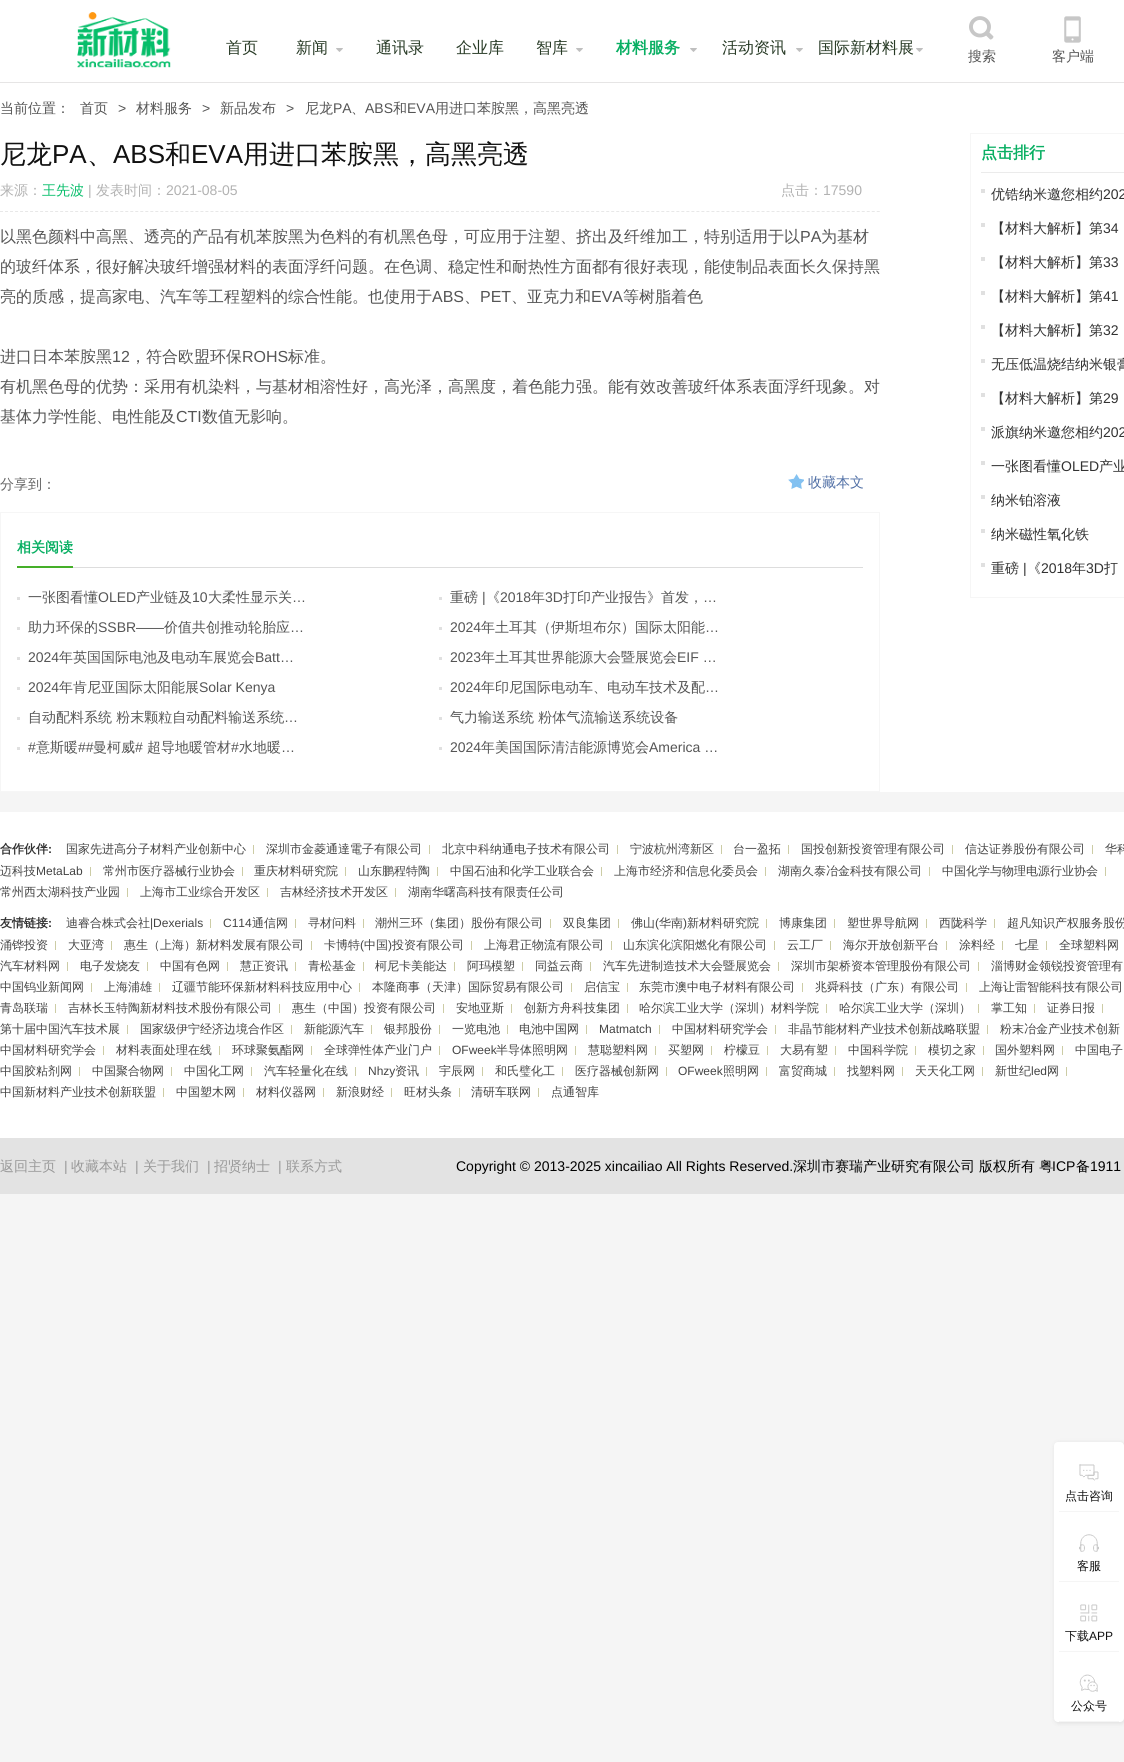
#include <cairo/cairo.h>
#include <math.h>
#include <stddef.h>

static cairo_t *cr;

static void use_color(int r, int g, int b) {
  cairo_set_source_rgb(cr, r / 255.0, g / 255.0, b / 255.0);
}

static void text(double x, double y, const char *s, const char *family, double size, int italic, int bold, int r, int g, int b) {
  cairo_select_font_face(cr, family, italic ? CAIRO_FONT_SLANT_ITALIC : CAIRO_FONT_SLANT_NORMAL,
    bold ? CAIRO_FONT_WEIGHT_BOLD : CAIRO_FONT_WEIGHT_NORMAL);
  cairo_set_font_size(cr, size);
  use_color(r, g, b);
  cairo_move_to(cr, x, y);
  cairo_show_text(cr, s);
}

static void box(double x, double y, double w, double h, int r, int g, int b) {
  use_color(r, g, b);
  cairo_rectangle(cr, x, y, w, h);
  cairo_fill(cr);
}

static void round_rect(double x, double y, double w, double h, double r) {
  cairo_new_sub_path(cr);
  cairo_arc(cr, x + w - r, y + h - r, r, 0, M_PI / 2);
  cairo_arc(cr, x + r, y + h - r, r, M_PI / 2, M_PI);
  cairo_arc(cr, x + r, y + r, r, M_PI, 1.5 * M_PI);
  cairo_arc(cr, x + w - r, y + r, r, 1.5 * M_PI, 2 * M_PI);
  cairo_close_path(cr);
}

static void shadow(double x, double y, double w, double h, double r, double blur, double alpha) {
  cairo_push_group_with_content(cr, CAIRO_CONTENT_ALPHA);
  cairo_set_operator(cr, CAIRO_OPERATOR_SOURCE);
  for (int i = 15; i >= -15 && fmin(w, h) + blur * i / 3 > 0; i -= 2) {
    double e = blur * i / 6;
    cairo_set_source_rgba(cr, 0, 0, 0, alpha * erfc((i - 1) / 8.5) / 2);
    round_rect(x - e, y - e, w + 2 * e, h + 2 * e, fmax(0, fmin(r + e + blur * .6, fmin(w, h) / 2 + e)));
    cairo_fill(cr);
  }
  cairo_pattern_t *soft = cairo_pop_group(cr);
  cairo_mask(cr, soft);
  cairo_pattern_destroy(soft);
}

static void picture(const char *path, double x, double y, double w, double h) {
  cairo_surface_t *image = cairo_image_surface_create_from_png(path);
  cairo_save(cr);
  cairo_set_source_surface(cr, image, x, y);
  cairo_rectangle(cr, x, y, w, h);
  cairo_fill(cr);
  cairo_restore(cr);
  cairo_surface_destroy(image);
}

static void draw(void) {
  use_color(245, 245, 245);
  cairo_paint(cr);
  box(0, 0, 1124, 82, 255, 255, 255);
  box(0, 82, 1124, 1, 230, 229, 229);
  picture("img_01.png", 77, 12, 94, 56);
  picture("img_02.png", 336, 48, 7, 4);
  picture("img_02.png", 576, 48, 7, 4);
  picture("img_02.png", 690, 48, 7, 4);
  picture("img_02.png", 796, 48, 7, 4);
  picture("img_02.png", 916, 48, 7, 4);
  picture("img_03.png", 969, 16, 25, 24);
  picture("img_04.png", 1064, 16, 17, 27);
  box(0, 83, 1124, 709, 255, 255, 255);
  cairo_new_path(cr);
  cairo_move_to(cr, 0, 211.5);
  cairo_line_to(cr, 880, 211.5);
  use_color(232, 232, 232);
  cairo_set_line_width(cr, 1);
  cairo_set_dash(cr, (double[]){3, 2.01}, 2, 0);
  cairo_stroke(cr);
  picture("img_05.png", 788, 474, 16, 15);
  cairo_rectangle(cr, 0.5, 512.5, 879, 279);
  use_color(246, 246, 246);
  cairo_set_dash(cr, NULL, 0, 0);
  cairo_stroke(cr);
  box(73, 567, 790, 1, 221, 221, 221);
  box(17, 566, 56, 2, 69, 175, 41);
  box(17, 597, 3, 3, 224, 224, 224);
  box(439, 597, 3, 3, 224, 224, 224);
  box(17, 627, 3, 3, 224, 224, 224);
  box(439, 627, 3, 3, 224, 224, 224);
  box(17, 657, 3, 3, 224, 224, 224);
  box(439, 657, 3, 3, 224, 224, 224);
  box(17, 687, 3, 3, 224, 224, 224);
  box(439, 687, 3, 3, 224, 224, 224);
  box(17, 717, 3, 3, 224, 224, 224);
  box(439, 717, 3, 3, 224, 224, 224);
  box(17, 747, 3, 3, 224, 224, 224);
  box(439, 747, 3, 3, 224, 224, 224);
  cairo_rectangle(cr, 970.5, 133.5, 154, 464);
  use_color(246, 246, 246);
  cairo_stroke(cr);
  box(981, 172, 143, 1, 235, 235, 235);
  box(981, 189, 4, 4, 224, 224, 224);
  box(981, 223, 4, 4, 224, 224, 224);
  box(981, 257, 4, 4, 224, 224, 224);
  box(981, 291, 4, 4, 224, 224, 224);
  box(981, 325, 4, 4, 224, 224, 224);
  box(981, 359, 4, 4, 224, 224, 224);
  box(981, 393, 4, 4, 224, 224, 224);
  box(981, 427, 4, 4, 224, 224, 224);
  box(981, 461, 4, 4, 224, 224, 224);
  box(981, 495, 4, 4, 224, 224, 224);
  box(981, 529, 4, 4, 224, 224, 224);
  box(981, 563, 4, 4, 224, 224, 224);
  box(0, 812, 1124, 326, 255, 255, 255);
  box(253, 845, 1, 9, 204, 204, 165);
  box(429, 845, 1, 9, 204, 204, 165);
  box(617, 845, 1, 9, 204, 204, 165);
  box(721, 845, 1, 9, 204, 204, 165);
  box(788, 845, 1, 9, 204, 204, 165);
  box(952, 845, 1, 9, 204, 204, 165);
  box(1092, 845, 1, 9, 204, 204, 165);
  box(90, 867, 1, 9, 204, 204, 165);
  box(242, 867, 1, 9, 204, 204, 165);
  box(345, 867, 1, 9, 204, 204, 165);
  box(437, 867, 1, 9, 204, 204, 165);
  box(601, 867, 1, 9, 204, 204, 165);
  box(765, 867, 1, 9, 204, 204, 165);
  box(929, 867, 1, 9, 204, 204, 165);
  box(1105, 867, 1, 9, 204, 204, 165);
  box(127, 888, 1, 9, 204, 204, 165);
  box(267, 888, 1, 9, 204, 204, 165);
  box(395, 888, 1, 9, 204, 204, 165);
  box(210, 919, 1, 9, 204, 204, 165);
  box(295, 919, 1, 9, 204, 204, 165);
  box(363, 919, 1, 9, 204, 204, 165);
  box(550, 919, 1, 9, 204, 204, 165);
  box(618, 919, 1, 9, 204, 204, 165);
  box(766, 919, 1, 9, 204, 204, 165);
  box(834, 919, 1, 9, 204, 204, 165);
  box(926, 919, 1, 9, 204, 204, 165);
  box(994, 919, 1, 9, 204, 204, 165);
  box(55, 941, 1, 9, 204, 204, 165);
  box(111, 941, 1, 9, 204, 204, 165);
  box(311, 941, 1, 9, 204, 204, 165);
  box(471, 941, 1, 9, 204, 204, 165);
  box(611, 941, 1, 9, 204, 204, 165);
  box(774, 941, 1, 9, 204, 204, 165);
  box(830, 941, 1, 9, 204, 204, 165);
  box(946, 941, 1, 9, 204, 204, 165);
  box(1002, 941, 1, 9, 204, 204, 165);
  box(1046, 941, 1, 9, 204, 204, 165);
  box(67, 962, 1, 9, 204, 204, 165);
  box(147, 962, 1, 9, 204, 204, 165);
  box(227, 962, 1, 9, 204, 204, 165);
  box(295, 962, 1, 9, 204, 204, 165);
  box(363, 962, 1, 9, 204, 204, 165);
  box(454, 962, 1, 9, 204, 204, 165);
  box(522, 962, 1, 9, 204, 204, 165);
  box(590, 962, 1, 9, 204, 204, 165);
  box(778, 962, 1, 9, 204, 204, 165);
  box(978, 962, 1, 9, 204, 204, 165);
  box(91, 983, 1, 9, 204, 204, 165);
  box(159, 983, 1, 9, 204, 204, 165);
  box(359, 983, 1, 9, 204, 204, 165);
  box(571, 983, 1, 9, 204, 204, 165);
  box(627, 983, 1, 9, 204, 204, 165);
  box(802, 983, 1, 9, 204, 204, 165);
  box(966, 983, 1, 9, 204, 204, 165);
  box(55, 1004, 1, 9, 204, 204, 165);
  box(279, 1004, 1, 9, 204, 204, 165);
  box(443, 1004, 1, 9, 204, 204, 165);
  box(511, 1004, 1, 9, 204, 204, 165);
  box(627, 1004, 1, 9, 204, 204, 165);
  box(826, 1004, 1, 9, 204, 204, 165);
  box(978, 1004, 1, 9, 204, 204, 165);
  box(1034, 1004, 1, 9, 204, 204, 165);
  box(1102, 1004, 1, 9, 204, 204, 165);
  box(127, 1025, 1, 9, 204, 204, 165);
  box(291, 1025, 1, 9, 204, 204, 165);
  box(371, 1025, 1, 9, 204, 204, 165);
  box(439, 1025, 1, 9, 204, 204, 165);
  box(507, 1025, 1, 9, 204, 204, 165);
  box(586, 1025, 1, 9, 204, 204, 165);
  box(659, 1025, 1, 9, 204, 204, 165);
  box(775, 1025, 1, 9, 204, 204, 165);
  box(987, 1025, 1, 9, 204, 204, 165);
  box(103, 1046, 1, 9, 204, 204, 165);
  box(219, 1046, 1, 9, 204, 204, 165);
  box(311, 1046, 1, 9, 204, 204, 165);
  box(439, 1046, 1, 9, 204, 204, 165);
  box(575, 1046, 1, 9, 204, 204, 165);
  box(655, 1046, 1, 9, 204, 204, 165);
  box(711, 1046, 1, 9, 204, 204, 165);
  box(767, 1046, 1, 9, 204, 204, 165);
  box(835, 1046, 1, 9, 204, 204, 165);
  box(915, 1046, 1, 9, 204, 204, 165);
  box(983, 1046, 1, 9, 204, 204, 165);
  box(1062, 1046, 1, 9, 204, 204, 165);
  box(79, 1067, 1, 9, 204, 204, 165);
  box(171, 1067, 1, 9, 204, 204, 165);
  box(251, 1067, 1, 9, 204, 204, 165);
  box(355, 1067, 1, 9, 204, 204, 165);
  box(426, 1067, 1, 9, 204, 204, 165);
  box(482, 1067, 1, 9, 204, 204, 165);
  box(562, 1067, 1, 9, 204, 204, 165);
  box(666, 1067, 1, 9, 204, 204, 165);
  box(766, 1067, 1, 9, 204, 204, 165);
  box(834, 1067, 1, 9, 204, 204, 165);
  box(902, 1067, 1, 9, 204, 204, 165);
  box(982, 1067, 1, 9, 204, 204, 165);
  box(1066, 1067, 1, 9, 204, 204, 165);
  box(163, 1088, 1, 9, 204, 204, 165);
  box(243, 1088, 1, 9, 204, 204, 165);
  box(323, 1088, 1, 9, 204, 204, 165);
  box(391, 1088, 1, 9, 204, 204, 165);
  box(459, 1088, 1, 9, 204, 204, 165);
  box(538, 1088, 1, 9, 204, 204, 165);
  box(0, 1138, 1124, 56, 227, 227, 227);
  use_color(0, 0, 0);
  shadow(1055, 1443, 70, 280, 4, 2.5, 0.1);
  use_color(255, 255, 255);
  round_rect(1054, 1442, 70, 280, 4);
  cairo_fill(cr);
  box(1059, 1511, 60, 1, 245, 245, 245);
  picture("img_06.png", 1079, 1464, 20, 17);
  box(1059, 1581, 60, 1, 245, 245, 245);
  picture("img_07.png", 1079, 1534, 20, 18);
  box(1059, 1651, 60, 1, 245, 245, 245);
  picture("img_08.png", 1080, 1604, 18, 18);
  box(1059, 1721, 60, 1, 245, 245, 245);
  picture("img_09.png", 1079, 1674, 19, 18);
  text(226, 53, "首页", "WenQuanYi Zen Hei Medium", 16, 0, 0, 39, 58, 37);
  text(296, 53, "新闻", "WenQuanYi Zen Hei Medium", 16, 0, 0, 39, 58, 37);
  text(376, 53, "通讯录", "WenQuanYi Zen Hei Medium", 16, 0, 0, 39, 58, 37);
  text(456, 53, "企业库", "WenQuanYi Zen Hei Medium", 16, 0, 0, 39, 58, 37);
  text(536, 53, "智库", "WenQuanYi Zen Hei Medium", 16, 0, 0, 39, 58, 37);
  text(616, 53, "材料服务", "WenQuanYi Zen Hei", 16, 0, 1, 9, 175, 99);
  text(722, 53, "活动资讯", "WenQuanYi Zen Hei Medium", 16, 0, 0, 39, 58, 37);
  text(818, 53, "国际新材料展", "WenQuanYi Zen Hei Medium", 16, 0, 0, 39, 58, 37);
  text(968, 61, "搜索", "WenQuanYi Zen Hei Medium", 14, 0, 0, 85, 85, 85);
  text(1052, 61, "客户端", "WenQuanYi Zen Hei Medium", 14, 0, 0, 85, 85, 85);
  text(0, 113, "当前位置：", "WenQuanYi Zen Hei Medium", 14, 0, 0, 85, 85, 85);
  text(80, 113, "首页", "WenQuanYi Zen Hei Medium", 14, 0, 0, 85, 85, 85);
  text(118, 113, ">", "Liberation Sans", 14, 0, 0, 85, 85, 85);
  text(136, 113, "材料服务", "WenQuanYi Zen Hei Medium", 14, 0, 0, 85, 85, 85);
  text(202, 113, ">", "Liberation Sans", 14, 0, 0, 85, 85, 85);
  text(220, 113, "新品发布", "WenQuanYi Zen Hei Medium", 14, 0, 0, 85, 85, 85);
  text(286, 113, ">", "Liberation Sans", 14, 0, 0, 85, 85, 85);
  text(305, 113, "尼龙", "WenQuanYi Zen Hei Medium", 14, 0, 0, 85, 85, 85);
  text(333, 113, "PA", "Liberation Sans", 14, 0, 0, 85, 85, 85);
  text(351, 113, "、", "WenQuanYi Zen Hei Medium", 14, 0, 0, 85, 85, 85);
  text(365, 113, "ABS", "Liberation Sans", 14, 0, 0, 85, 85, 85);
  text(393, 113, "和", "WenQuanYi Zen Hei Medium", 14, 0, 0, 85, 85, 85);
  text(407, 113, "EVA", "Liberation Sans", 14, 0, 0, 85, 85, 85);
  text(435, 113, "用进口苯胺黑，高黑亮透", "WenQuanYi Zen Hei Medium", 14, 0, 0, 85, 85, 85);
  text(0, 163, "尼龙", "WenQuanYi Zen Hei Medium", 26, 0, 0, 17, 17, 17);
  text(52, 163, "PA", "Liberation Sans", 26, 0, 0, 17, 17, 17);
  text(87, 163, "、", "WenQuanYi Zen Hei Medium", 26, 0, 0, 17, 17, 17);
  text(113, 163, "ABS", "Liberation Sans", 26, 0, 0, 17, 17, 17);
  text(165, 163, "和", "WenQuanYi Zen Hei Medium", 26, 0, 0, 17, 17, 17);
  text(191, 163, "EVA", "Liberation Sans", 26, 0, 0, 17, 17, 17);
  text(243, 163, "用进口苯胺黑，高黑亮透", "WenQuanYi Zen Hei Medium", 26, 0, 0, 17, 17, 17);
  text(0, 195, "来源：", "WenQuanYi Zen Hei Medium", 14, 0, 0, 178, 178, 178);
  text(42, 195, "王先波", "WenQuanYi Zen Hei Medium", 14, 0, 0, 6, 190, 106);
  text(88, 195, "|", "Liberation Sans", 14, 0, 0, 178, 178, 178);
  text(96, 195, "发表时间：", "WenQuanYi Zen Hei Medium", 14, 0, 0, 178, 178, 178);
  text(166, 195, "2021-08-05", "Liberation Sans", 14, 0, 0, 178, 178, 178);
  text(781, 195, "点击：", "WenQuanYi Zen Hei Medium", 14, 0, 0, 178, 178, 178);
  text(823, 195, "17590", "Liberation Sans", 14, 0, 0, 178, 178, 178);
  text(0, 242, "以黑色颜料中高黑、透亮的产品有机苯胺黑为色料的有机黑色母，可应用于注塑、挤出及纤维加工，特别适用于以", "WenQuanYi Zen Hei Medium", 16, 0, 0, 85, 85, 85);
  text(800, 242, "PA", "Liberation Sans", 16, 0, 0, 85, 85, 85);
  text(821, 242, "为基材", "WenQuanYi Zen Hei Medium", 16, 0, 0, 85, 85, 85);
  text(0, 272, "的玻纤体系，很好解决玻纤增强材料的表面浮纤问题。在色调、稳定性和耐热性方面都有很好表现，能使制品表面长久保持黑", "WenQuanYi Zen Hei Medium", 16, 0, 0, 85, 85, 85);
  text(0, 302, "亮的质感，提高家电、汽车等工程塑料的综合性能。也使用于", "WenQuanYi Zen Hei Medium", 16, 0, 0, 85, 85, 85);
  text(432, 302, "ABS", "Liberation Sans", 16, 0, 0, 85, 85, 85);
  text(464, 302, "、", "WenQuanYi Zen Hei Medium", 16, 0, 0, 85, 85, 85);
  text(480, 302, "PET", "Liberation Sans", 16, 0, 0, 85, 85, 85);
  text(511, 302, "、亚克力和", "WenQuanYi Zen Hei Medium", 16, 0, 0, 85, 85, 85);
  text(591, 302, "EVA", "Liberation Sans", 16, 0, 0, 85, 85, 85);
  text(623, 302, "等树脂着色", "WenQuanYi Zen Hei Medium", 16, 0, 0, 85, 85, 85);
  text(0, 362, "进口日本苯胺黑", "WenQuanYi Zen Hei Medium", 16, 0, 0, 85, 85, 85);
  text(112, 362, "12", "Liberation Sans", 16, 0, 0, 85, 85, 85);
  text(130, 362, "，符合欧盟环保", "WenQuanYi Zen Hei Medium", 16, 0, 0, 85, 85, 85);
  text(242, 362, "ROHS", "Liberation Sans", 16, 0, 0, 85, 85, 85);
  text(288, 362, "标准。", "WenQuanYi Zen Hei Medium", 16, 0, 0, 85, 85, 85);
  text(0, 392, "有机黑色母的优势：采用有机染料，与基材相溶性好，高光泽，高黑度，着色能力强。能有效改善玻纤体系表面浮纤现象。对", "WenQuanYi Zen Hei Medium", 16, 0, 0, 85, 85, 85);
  text(0, 422, "基体力学性能、电性能及", "WenQuanYi Zen Hei Medium", 16, 0, 0, 85, 85, 85);
  text(176, 422, "CTI", "Liberation Sans", 16, 0, 0, 85, 85, 85);
  text(202, 422, "数值无影响。", "WenQuanYi Zen Hei Medium", 16, 0, 0, 85, 85, 85);
  text(0, 489, "分享到：", "WenQuanYi Zen Hei Medium", 14, 0, 0, 102, 102, 102);
  text(808, 487, "收藏本文", "WenQuanYi Zen Hei Medium", 14, 0, 0, 81, 112, 166);
  text(17, 552, "相关阅读", "WenQuanYi Zen Hei", 14, 0, 1, 9, 175, 99);
  text(28, 602, "一张图看懂", "WenQuanYi Zen Hei Medium", 14, 0, 0, 85, 85, 85);
  text(98, 602, "OLED", "Liberation Sans", 14, 0, 0, 85, 85, 85);
  text(136, 602, "产业链及", "WenQuanYi Zen Hei Medium", 14, 0, 0, 85, 85, 85);
  text(192, 602, "10", "Liberation Sans", 14, 0, 0, 85, 85, 85);
  text(208, 602, "大柔性显示关", "WenQuanYi Zen Hei Medium", 14, 0, 0, 85, 85, 85);
  text(292, 602, "…", "Liberation Sans", 14, 0, 0, 85, 85, 85);
  text(450, 602, "重磅", "WenQuanYi Zen Hei Medium", 14, 0, 0, 85, 85, 85);
  text(482, 602, "|", "Liberation Sans", 14, 0, 0, 85, 85, 85);
  text(486, 602, "《", "WenQuanYi Zen Hei Medium", 14, 0, 0, 85, 85, 85);
  text(500, 602, "2018", "Liberation Sans", 14, 0, 0, 85, 85, 85);
  text(531, 602, "年", "WenQuanYi Zen Hei Medium", 14, 0, 0, 85, 85, 85);
  text(545, 602, "3D", "Liberation Sans", 14, 0, 0, 85, 85, 85);
  text(563, 602, "打印产业报告》首发，", "WenQuanYi Zen Hei Medium", 14, 0, 0, 85, 85, 85);
  text(703, 602, "…", "Liberation Sans", 14, 0, 0, 85, 85, 85);
  text(28, 632, "助力环保的", "WenQuanYi Zen Hei Medium", 14, 0, 0, 85, 85, 85);
  text(98, 632, "SSBR——", "Liberation Sans", 14, 0, 0, 85, 85, 85);
  text(164, 632, "价值共创推动轮胎应", "WenQuanYi Zen Hei Medium", 14, 0, 0, 85, 85, 85);
  text(290, 632, "…", "Liberation Sans", 14, 0, 0, 85, 85, 85);
  text(450, 632, "2024", "Liberation Sans", 14, 0, 0, 85, 85, 85);
  text(481, 632, "年土耳其（伊斯坦布尔）国际太阳能", "WenQuanYi Zen Hei Medium", 14, 0, 0, 85, 85, 85);
  text(705, 632, "…", "Liberation Sans", 14, 0, 0, 85, 85, 85);
  text(28, 662, "2024", "Liberation Sans", 14, 0, 0, 85, 85, 85);
  text(59, 662, "年英国国际电池及电动车展览会", "WenQuanYi Zen Hei Medium", 14, 0, 0, 85, 85, 85);
  text(255, 662, "Batt…", "Liberation Sans", 14, 0, 0, 85, 85, 85);
  text(450, 662, "2023", "Liberation Sans", 14, 0, 0, 85, 85, 85);
  text(481, 662, "年土耳其世界能源大会暨展览会", "WenQuanYi Zen Hei Medium", 14, 0, 0, 85, 85, 85);
  text(677, 662, "EIF …", "Liberation Sans", 14, 0, 0, 85, 85, 85);
  text(28, 692, "2024", "Liberation Sans", 14, 0, 0, 85, 85, 85);
  text(59, 692, "年肯尼亚国际太阳能展", "WenQuanYi Zen Hei Medium", 14, 0, 0, 85, 85, 85);
  text(199, 692, "Solar Kenya", "Liberation Sans", 14, 0, 0, 85, 85, 85);
  text(450, 692, "2024", "Liberation Sans", 14, 0, 0, 85, 85, 85);
  text(481, 692, "年印尼国际电动车、电动车技术及配", "WenQuanYi Zen Hei Medium", 14, 0, 0, 85, 85, 85);
  text(705, 692, "…", "Liberation Sans", 14, 0, 0, 85, 85, 85);
  text(28, 722, "自动配料系统 粉末颗粒自动配料输送系统", "WenQuanYi Zen Hei Medium", 14, 0, 0, 85, 85, 85);
  text(284, 722, "…", "Liberation Sans", 14, 0, 0, 85, 85, 85);
  text(450, 722, "气力输送系统 粉体气流输送系统设备", "WenQuanYi Zen Hei Medium", 14, 0, 0, 85, 85, 85);
  text(28, 752, "#", "Liberation Sans", 14, 0, 0, 85, 85, 85);
  text(36, 752, "意斯暖", "WenQuanYi Zen Hei Medium", 14, 0, 0, 85, 85, 85);
  text(78, 752, "##", "Liberation Sans", 14, 0, 0, 85, 85, 85);
  text(93, 752, "曼柯威", "WenQuanYi Zen Hei Medium", 14, 0, 0, 85, 85, 85);
  text(135, 752, "#", "Liberation Sans", 14, 0, 0, 85, 85, 85);
  text(147, 752, "超导地暖管材", "WenQuanYi Zen Hei Medium", 14, 0, 0, 85, 85, 85);
  text(231, 752, "#", "Liberation Sans", 14, 0, 0, 85, 85, 85);
  text(239, 752, "水地暖", "WenQuanYi Zen Hei Medium", 14, 0, 0, 85, 85, 85);
  text(281, 752, "…", "Liberation Sans", 14, 0, 0, 85, 85, 85);
  text(450, 752, "2024", "Liberation Sans", 14, 0, 0, 85, 85, 85);
  text(481, 752, "年美国国际清洁能源博览会", "WenQuanYi Zen Hei Medium", 14, 0, 0, 85, 85, 85);
  text(649, 752, "America …", "Liberation Sans", 14, 0, 0, 85, 85, 85);
  text(981, 158, "点击排行", "WenQuanYi Zen Hei", 16, 0, 1, 9, 175, 99);
  text(991, 199, "优锆纳米邀您相约", "WenQuanYi Zen Hei Medium", 14, 0, 0, 50, 50, 50);
  text(1103, 199, "202", "Liberation Sans", 14, 0, 0, 50, 50, 50);
  text(991, 233, "【材料大解析】第", "WenQuanYi Zen Hei Medium", 14, 0, 0, 50, 50, 50);
  text(1103, 233, "34", "Liberation Sans", 14, 0, 0, 50, 50, 50);
  text(991, 267, "【材料大解析】第", "WenQuanYi Zen Hei Medium", 14, 0, 0, 50, 50, 50);
  text(1103, 267, "33", "Liberation Sans", 14, 0, 0, 50, 50, 50);
  text(991, 301, "【材料大解析】第", "WenQuanYi Zen Hei Medium", 14, 0, 0, 50, 50, 50);
  text(1103, 301, "41", "Liberation Sans", 14, 0, 0, 50, 50, 50);
  text(991, 335, "【材料大解析】第", "WenQuanYi Zen Hei Medium", 14, 0, 0, 50, 50, 50);
  text(1103, 335, "32", "Liberation Sans", 14, 0, 0, 50, 50, 50);
  text(991, 369, "无压低温烧结纳米银膏", "WenQuanYi Zen Hei Medium", 14, 0, 0, 50, 50, 50);
  text(991, 403, "【材料大解析】第", "WenQuanYi Zen Hei Medium", 14, 0, 0, 50, 50, 50);
  text(1103, 403, "29", "Liberation Sans", 14, 0, 0, 50, 50, 50);
  text(991, 437, "派旗纳米邀您相约", "WenQuanYi Zen Hei Medium", 14, 0, 0, 50, 50, 50);
  text(1103, 437, "202", "Liberation Sans", 14, 0, 0, 50, 50, 50);
  text(991, 471, "一张图看懂", "WenQuanYi Zen Hei Medium", 14, 0, 0, 50, 50, 50);
  text(1061, 471, "OLED", "Liberation Sans", 14, 0, 0, 50, 50, 50);
  text(1099, 471, "产业", "WenQuanYi Zen Hei Medium", 14, 0, 0, 50, 50, 50);
  text(991, 505, "纳米铂溶液", "WenQuanYi Zen Hei Medium", 14, 0, 0, 50, 50, 50);
  text(991, 539, "纳米磁性氧化铁", "WenQuanYi Zen Hei Medium", 14, 0, 0, 50, 50, 50);
  text(991, 573, "重磅", "WenQuanYi Zen Hei Medium", 14, 0, 0, 50, 50, 50);
  text(1023, 573, "|", "Liberation Sans", 14, 0, 0, 50, 50, 50);
  text(1027, 573, "《", "WenQuanYi Zen Hei Medium", 14, 0, 0, 50, 50, 50);
  text(1041, 573, "2018", "Liberation Sans", 14, 0, 0, 50, 50, 50);
  text(1072, 573, "年", "WenQuanYi Zen Hei Medium", 14, 0, 0, 50, 50, 50);
  text(1086, 573, "3D", "Liberation Sans", 14, 0, 0, 50, 50, 50);
  text(1104, 573, "打", "WenQuanYi Zen Hei Medium", 14, 0, 0, 50, 50, 50);
  text(0, 853, "合作伙伴", "WenQuanYi Zen Hei", 12, 0, 1, 50, 50, 50);
  text(48, 853, ":", "Liberation Sans", 12, 0, 1, 50, 50, 50);
  text(66, 853, "国家先进高分子材料产业创新中心", "WenQuanYi Zen Hei Medium", 12, 0, 0, 68, 68, 68);
  text(266, 853, "深圳市金菱通達電子有限公司", "WenQuanYi Zen Hei Medium", 12, 0, 0, 68, 68, 68);
  text(442, 853, "北京中科纳通电子技术有限公司", "WenQuanYi Zen Hei Medium", 12, 0, 0, 68, 68, 68);
  text(630, 853, "宁波杭州湾新区", "WenQuanYi Zen Hei Medium", 12, 0, 0, 68, 68, 68);
  text(733, 853, "台一盈拓", "WenQuanYi Zen Hei Medium", 12, 0, 0, 68, 68, 68);
  text(801, 853, "国投创新投资管理有限公司", "WenQuanYi Zen Hei Medium", 12, 0, 0, 68, 68, 68);
  text(965, 853, "信达证券股份有限公司", "WenQuanYi Zen Hei Medium", 12, 0, 0, 68, 68, 68);
  text(1105, 853, "华科", "WenQuanYi Zen Hei Medium", 12, 0, 0, 68, 68, 68);
  text(0, 875, "迈科技", "WenQuanYi Zen Hei Medium", 12, 0, 0, 68, 68, 68);
  text(36, 875, "MetaLab", "Liberation Sans", 12, 0, 0, 68, 68, 68);
  text(103, 875, "常州市医疗器械行业协会", "WenQuanYi Zen Hei Medium", 12, 0, 0, 68, 68, 68);
  text(254, 875, "重庆材料研究院", "WenQuanYi Zen Hei Medium", 12, 0, 0, 68, 68, 68);
  text(358, 875, "山东鹏程特陶", "WenQuanYi Zen Hei Medium", 12, 0, 0, 68, 68, 68);
  text(450, 875, "中国石油和化学工业联合会", "WenQuanYi Zen Hei Medium", 12, 0, 0, 68, 68, 68);
  text(614, 875, "上海市经济和信息化委员会", "WenQuanYi Zen Hei Medium", 12, 0, 0, 68, 68, 68);
  text(778, 875, "湖南久泰冶金科技有限公司", "WenQuanYi Zen Hei Medium", 12, 0, 0, 68, 68, 68);
  text(942, 875, "中国化学与物理电源行业协会", "WenQuanYi Zen Hei Medium", 12, 0, 0, 68, 68, 68);
  text(0, 896, "常州西太湖科技产业园", "WenQuanYi Zen Hei Medium", 12, 0, 0, 68, 68, 68);
  text(140, 896, "上海市工业综合开发区", "WenQuanYi Zen Hei Medium", 12, 0, 0, 68, 68, 68);
  text(280, 896, "吉林经济技术开发区", "WenQuanYi Zen Hei Medium", 12, 0, 0, 68, 68, 68);
  text(408, 896, "湖南华曙高科技有限责任公司", "WenQuanYi Zen Hei Medium", 12, 0, 0, 68, 68, 68);
  text(0, 927, "友情链接", "WenQuanYi Zen Hei", 12, 0, 1, 50, 50, 50);
  text(48, 927, ":", "Liberation Sans", 12, 0, 1, 50, 50, 50);
  text(66, 927, "迪睿合株式会社", "WenQuanYi Zen Hei Medium", 12, 0, 0, 68, 68, 68);
  text(150, 927, "|Dexerials", "Liberation Sans", 12, 0, 0, 68, 68, 68);
  text(223, 927, "C114", "Liberation Sans", 12, 0, 0, 68, 68, 68);
  text(252, 927, "通信网", "WenQuanYi Zen Hei Medium", 12, 0, 0, 68, 68, 68);
  text(308, 927, "寻材问料", "WenQuanYi Zen Hei Medium", 12, 0, 0, 68, 68, 68);
  text(375, 927, "潮州三环（集团）股份有限公司", "WenQuanYi Zen Hei Medium", 12, 0, 0, 68, 68, 68);
  text(563, 927, "双良集团", "WenQuanYi Zen Hei Medium", 12, 0, 0, 68, 68, 68);
  text(631, 927, "佛山", "WenQuanYi Zen Hei Medium", 12, 0, 0, 68, 68, 68);
  text(655, 927, "(", "Liberation Sans", 12, 0, 0, 68, 68, 68);
  text(659, 927, "华南", "WenQuanYi Zen Hei Medium", 12, 0, 0, 68, 68, 68);
  text(683, 927, ")", "Liberation Sans", 12, 0, 0, 68, 68, 68);
  text(687, 927, "新材料研究院", "WenQuanYi Zen Hei Medium", 12, 0, 0, 68, 68, 68);
  text(779, 927, "博康集团", "WenQuanYi Zen Hei Medium", 12, 0, 0, 68, 68, 68);
  text(847, 927, "塑世界导航网", "WenQuanYi Zen Hei Medium", 12, 0, 0, 68, 68, 68);
  text(939, 927, "西陇科学", "WenQuanYi Zen Hei Medium", 12, 0, 0, 68, 68, 68);
  text(1007, 927, "超凡知识产权服务股份", "WenQuanYi Zen Hei Medium", 12, 0, 0, 68, 68, 68);
  text(0, 949, "涌铧投资", "WenQuanYi Zen Hei Medium", 12, 0, 0, 68, 68, 68);
  text(68, 949, "大亚湾", "WenQuanYi Zen Hei Medium", 12, 0, 0, 68, 68, 68);
  text(124, 949, "惠生（上海）新材料发展有限公司", "WenQuanYi Zen Hei Medium", 12, 0, 0, 68, 68, 68);
  text(324, 949, "卡博特", "WenQuanYi Zen Hei Medium", 12, 0, 0, 68, 68, 68);
  text(360, 949, "(", "Liberation Sans", 12, 0, 0, 68, 68, 68);
  text(364, 949, "中国", "WenQuanYi Zen Hei Medium", 12, 0, 0, 68, 68, 68);
  text(388, 949, ")", "Liberation Sans", 12, 0, 0, 68, 68, 68);
  text(392, 949, "投资有限公司", "WenQuanYi Zen Hei Medium", 12, 0, 0, 68, 68, 68);
  text(484, 949, "上海君正物流有限公司", "WenQuanYi Zen Hei Medium", 12, 0, 0, 68, 68, 68);
  text(623, 949, "山东滨化滨阳燃化有限公司", "WenQuanYi Zen Hei Medium", 12, 0, 0, 68, 68, 68);
  text(787, 949, "云工厂", "WenQuanYi Zen Hei Medium", 12, 0, 0, 68, 68, 68);
  text(843, 949, "海尔开放创新平台", "WenQuanYi Zen Hei Medium", 12, 0, 0, 68, 68, 68);
  text(959, 949, "涂料经", "WenQuanYi Zen Hei Medium", 12, 0, 0, 68, 68, 68);
  text(1015, 949, "七星", "WenQuanYi Zen Hei Medium", 12, 0, 0, 68, 68, 68);
  text(1059, 949, "全球塑料网", "WenQuanYi Zen Hei Medium", 12, 0, 0, 68, 68, 68);
  text(0, 970, "汽车材料网", "WenQuanYi Zen Hei Medium", 12, 0, 0, 68, 68, 68);
  text(80, 970, "电子发烧友", "WenQuanYi Zen Hei Medium", 12, 0, 0, 68, 68, 68);
  text(160, 970, "中国有色网", "WenQuanYi Zen Hei Medium", 12, 0, 0, 68, 68, 68);
  text(240, 970, "慧正资讯", "WenQuanYi Zen Hei Medium", 12, 0, 0, 68, 68, 68);
  text(308, 970, "青松基金", "WenQuanYi Zen Hei Medium", 12, 0, 0, 68, 68, 68);
  text(375, 970, "柯尼卡美能达", "WenQuanYi Zen Hei Medium", 12, 0, 0, 68, 68, 68);
  text(467, 970, "阿玛模塑", "WenQuanYi Zen Hei Medium", 12, 0, 0, 68, 68, 68);
  text(535, 970, "同益云商", "WenQuanYi Zen Hei Medium", 12, 0, 0, 68, 68, 68);
  text(603, 970, "汽车先进制造技术大会暨展览会", "WenQuanYi Zen Hei Medium", 12, 0, 0, 68, 68, 68);
  text(791, 970, "深圳市架桥资本管理股份有限公司", "WenQuanYi Zen Hei Medium", 12, 0, 0, 68, 68, 68);
  text(991, 970, "淄博财金领锐投资管理有", "WenQuanYi Zen Hei Medium", 12, 0, 0, 68, 68, 68);
  text(0, 991, "中国钨业新闻网", "WenQuanYi Zen Hei Medium", 12, 0, 0, 68, 68, 68);
  text(104, 991, "上海浦雄", "WenQuanYi Zen Hei Medium", 12, 0, 0, 68, 68, 68);
  text(172, 991, "辽疆节能环保新材料科技应用中心", "WenQuanYi Zen Hei Medium", 12, 0, 0, 68, 68, 68);
  text(372, 991, "本隆商事（天津）国际贸易有限公司", "WenQuanYi Zen Hei Medium", 12, 0, 0, 68, 68, 68);
  text(584, 991, "启信宝", "WenQuanYi Zen Hei Medium", 12, 0, 0, 68, 68, 68);
  text(639, 991, "东莞市澳中电子材料有限公司", "WenQuanYi Zen Hei Medium", 12, 0, 0, 68, 68, 68);
  text(815, 991, "兆舜科技（广东）有限公司", "WenQuanYi Zen Hei Medium", 12, 0, 0, 68, 68, 68);
  text(979, 991, "上海让雷智能科技有限公司", "WenQuanYi Zen Hei Medium", 12, 0, 0, 68, 68, 68);
  text(0, 1012, "青岛联瑞", "WenQuanYi Zen Hei Medium", 12, 0, 0, 68, 68, 68);
  text(68, 1012, "吉林长玉特陶新材料技术股份有限公司", "WenQuanYi Zen Hei Medium", 12, 0, 0, 68, 68, 68);
  text(292, 1012, "惠生（中国）投资有限公司", "WenQuanYi Zen Hei Medium", 12, 0, 0, 68, 68, 68);
  text(456, 1012, "安地亚斯", "WenQuanYi Zen Hei Medium", 12, 0, 0, 68, 68, 68);
  text(524, 1012, "创新方舟科技集团", "WenQuanYi Zen Hei Medium", 12, 0, 0, 68, 68, 68);
  text(639, 1012, "哈尔滨工业大学（深圳）材料学院", "WenQuanYi Zen Hei Medium", 12, 0, 0, 68, 68, 68);
  text(839, 1012, "哈尔滨工业大学（深圳）", "WenQuanYi Zen Hei Medium", 12, 0, 0, 68, 68, 68);
  text(991, 1012, "掌工知", "WenQuanYi Zen Hei Medium", 12, 0, 0, 68, 68, 68);
  text(1047, 1012, "证券日报", "WenQuanYi Zen Hei Medium", 12, 0, 0, 68, 68, 68);
  text(0, 1033, "第十届中国汽车技术展", "WenQuanYi Zen Hei Medium", 12, 0, 0, 68, 68, 68);
  text(140, 1033, "国家级伊宁经济边境合作区", "WenQuanYi Zen Hei Medium", 12, 0, 0, 68, 68, 68);
  text(304, 1033, "新能源汽车", "WenQuanYi Zen Hei Medium", 12, 0, 0, 68, 68, 68);
  text(384, 1033, "银邦股份", "WenQuanYi Zen Hei Medium", 12, 0, 0, 68, 68, 68);
  text(452, 1033, "一览电池", "WenQuanYi Zen Hei Medium", 12, 0, 0, 68, 68, 68);
  text(519, 1033, "电池中国网", "WenQuanYi Zen Hei Medium", 12, 0, 0, 68, 68, 68);
  text(599, 1033, "Matmatch", "Liberation Sans", 12, 0, 0, 68, 68, 68);
  text(672, 1033, "中国材料研究学会", "WenQuanYi Zen Hei Medium", 12, 0, 0, 68, 68, 68);
  text(788, 1033, "非晶节能材料产业技术创新战略联盟", "WenQuanYi Zen Hei Medium", 12, 0, 0, 68, 68, 68);
  text(1000, 1033, "粉末冶金产业技术创新", "WenQuanYi Zen Hei Medium", 12, 0, 0, 68, 68, 68);
  text(0, 1054, "中国材料研究学会", "WenQuanYi Zen Hei Medium", 12, 0, 0, 68, 68, 68);
  text(116, 1054, "材料表面处理在线", "WenQuanYi Zen Hei Medium", 12, 0, 0, 68, 68, 68);
  text(232, 1054, "环球聚氨酯网", "WenQuanYi Zen Hei Medium", 12, 0, 0, 68, 68, 68);
  text(324, 1054, "全球弹性体产业门户", "WenQuanYi Zen Hei Medium", 12, 0, 0, 68, 68, 68);
  text(452, 1054, "OFweek", "Liberation Sans", 12, 0, 0, 68, 68, 68);
  text(496, 1054, "半导体照明网", "WenQuanYi Zen Hei Medium", 12, 0, 0, 68, 68, 68);
  text(588, 1054, "慧聪塑料网", "WenQuanYi Zen Hei Medium", 12, 0, 0, 68, 68, 68);
  text(668, 1054, "买塑网", "WenQuanYi Zen Hei Medium", 12, 0, 0, 68, 68, 68);
  text(724, 1054, "柠檬豆", "WenQuanYi Zen Hei Medium", 12, 0, 0, 68, 68, 68);
  text(780, 1054, "大易有塑", "WenQuanYi Zen Hei Medium", 12, 0, 0, 68, 68, 68);
  text(848, 1054, "中国科学院", "WenQuanYi Zen Hei Medium", 12, 0, 0, 68, 68, 68);
  text(928, 1054, "模切之家", "WenQuanYi Zen Hei Medium", 12, 0, 0, 68, 68, 68);
  text(995, 1054, "国外塑料网", "WenQuanYi Zen Hei Medium", 12, 0, 0, 68, 68, 68);
  text(1075, 1054, "中国电子", "WenQuanYi Zen Hei Medium", 12, 0, 0, 68, 68, 68);
  text(0, 1075, "中国胶粘剂网", "WenQuanYi Zen Hei Medium", 12, 0, 0, 68, 68, 68);
  text(92, 1075, "中国聚合物网", "WenQuanYi Zen Hei Medium", 12, 0, 0, 68, 68, 68);
  text(184, 1075, "中国化工网", "WenQuanYi Zen Hei Medium", 12, 0, 0, 68, 68, 68);
  text(264, 1075, "汽车轻量化在线", "WenQuanYi Zen Hei Medium", 12, 0, 0, 68, 68, 68);
  text(368, 1075, "Nhzy", "Liberation Sans", 12, 0, 0, 68, 68, 68);
  text(395, 1075, "资讯", "WenQuanYi Zen Hei Medium", 12, 0, 0, 68, 68, 68);
  text(439, 1075, "宇辰网", "WenQuanYi Zen Hei Medium", 12, 0, 0, 68, 68, 68);
  text(495, 1075, "和氏璧化工", "WenQuanYi Zen Hei Medium", 12, 0, 0, 68, 68, 68);
  text(575, 1075, "医疗器械创新网", "WenQuanYi Zen Hei Medium", 12, 0, 0, 68, 68, 68);
  text(678, 1075, "OFweek", "Liberation Sans", 12, 0, 0, 68, 68, 68);
  text(723, 1075, "照明网", "WenQuanYi Zen Hei Medium", 12, 0, 0, 68, 68, 68);
  text(779, 1075, "富贸商城", "WenQuanYi Zen Hei Medium", 12, 0, 0, 68, 68, 68);
  text(847, 1075, "找塑料网", "WenQuanYi Zen Hei Medium", 12, 0, 0, 68, 68, 68);
  text(915, 1075, "天天化工网", "WenQuanYi Zen Hei Medium", 12, 0, 0, 68, 68, 68);
  text(995, 1075, "新世纪", "WenQuanYi Zen Hei Medium", 12, 0, 0, 68, 68, 68);
  text(1031, 1075, "led", "Liberation Sans", 12, 0, 0, 68, 68, 68);
  text(1047, 1075, "网", "WenQuanYi Zen Hei Medium", 12, 0, 0, 68, 68, 68);
  text(0, 1096, "中国新材料产业技术创新联盟", "WenQuanYi Zen Hei Medium", 12, 0, 0, 68, 68, 68);
  text(176, 1096, "中国塑木网", "WenQuanYi Zen Hei Medium", 12, 0, 0, 68, 68, 68);
  text(256, 1096, "材料仪器网", "WenQuanYi Zen Hei Medium", 12, 0, 0, 68, 68, 68);
  text(336, 1096, "新浪财经", "WenQuanYi Zen Hei Medium", 12, 0, 0, 68, 68, 68);
  text(404, 1096, "旺材头条", "WenQuanYi Zen Hei Medium", 12, 0, 0, 68, 68, 68);
  text(471, 1096, "清研车联网", "WenQuanYi Zen Hei Medium", 12, 0, 0, 68, 68, 68);
  text(551, 1096, "点通智库", "WenQuanYi Zen Hei Medium", 12, 0, 0, 68, 68, 68);
  text(0, 1171, "返回主页", "WenQuanYi Zen Hei Medium", 14, 0, 0, 153, 153, 153);
  text(64, 1171, "|", "Liberation Sans", 14, 0, 0, 153, 153, 153);
  text(71, 1171, "收藏本站", "WenQuanYi Zen Hei Medium", 14, 0, 0, 153, 153, 153);
  text(135, 1171, "|", "Liberation Sans", 14, 0, 0, 153, 153, 153);
  text(143, 1171, "关于我们", "WenQuanYi Zen Hei Medium", 14, 0, 0, 153, 153, 153);
  text(207, 1171, "|", "Liberation Sans", 14, 0, 0, 153, 153, 153);
  text(214, 1171, "招贤纳士", "WenQuanYi Zen Hei Medium", 14, 0, 0, 153, 153, 153);
  text(278, 1171, "|", "Liberation Sans", 14, 0, 0, 153, 153, 153);
  text(286, 1171, "联系方式", "WenQuanYi Zen Hei Medium", 14, 0, 0, 153, 153, 153);
  text(456, 1171, "Copyright © 2013-2025 xincailiao All Rights Reserved.", "Liberation Sans", 14, 0, 0, 0, 0, 0);
  text(793, 1171, "深圳市赛瑞产业研究有限公司", "WenQuanYi Zen Hei Medium", 14, 0, 0, 0, 0, 0);
  text(979, 1171, "版权所有 粤", "WenQuanYi Zen Hei Medium", 14, 0, 0, 0, 0, 0);
  text(1052, 1171, "ICP", "Liberation Sans", 14, 0, 0, 0, 0, 0);
  text(1076, 1171, "备", "WenQuanYi Zen Hei Medium", 14, 0, 0, 0, 0, 0);
  text(1090, 1171, "1911", "Liberation Sans", 14, 0, 0, 0, 0, 0);
  text(1065, 1500, "点击咨询", "WenQuanYi Zen Hei Medium", 12, 0, 0, 17, 17, 17);
  text(1077, 1570, "客服", "WenQuanYi Zen Hei Medium", 12, 0, 0, 17, 17, 17);
  text(1065, 1640, "下载", "WenQuanYi Zen Hei Medium", 12, 0, 0, 17, 17, 17);
  text(1089, 1640, "APP", "Liberation Sans", 12, 0, 0, 17, 17, 17);
  text(1071, 1710, "公众号", "WenQuanYi Zen Hei Medium", 12, 0, 0, 17, 17, 17);
}

int main(void) {
  cairo_surface_t *surface = cairo_image_surface_create(CAIRO_FORMAT_RGB24, 1124, 1762);
  cr = cairo_create(surface);
  cairo_font_options_t *options = cairo_font_options_create();
  cairo_font_options_set_hint_metrics(options, CAIRO_HINT_METRICS_OFF);
  cairo_font_options_set_hint_style(options, CAIRO_HINT_STYLE_NONE);
  cairo_set_font_options(cr, options);
  cairo_set_miter_limit(cr, 4);
  draw();
  cairo_surface_write_to_png(surface, "out.png");
  cairo_font_options_destroy(options);
  cairo_destroy(cr);
  cairo_surface_destroy(surface);
  return 0;
}
